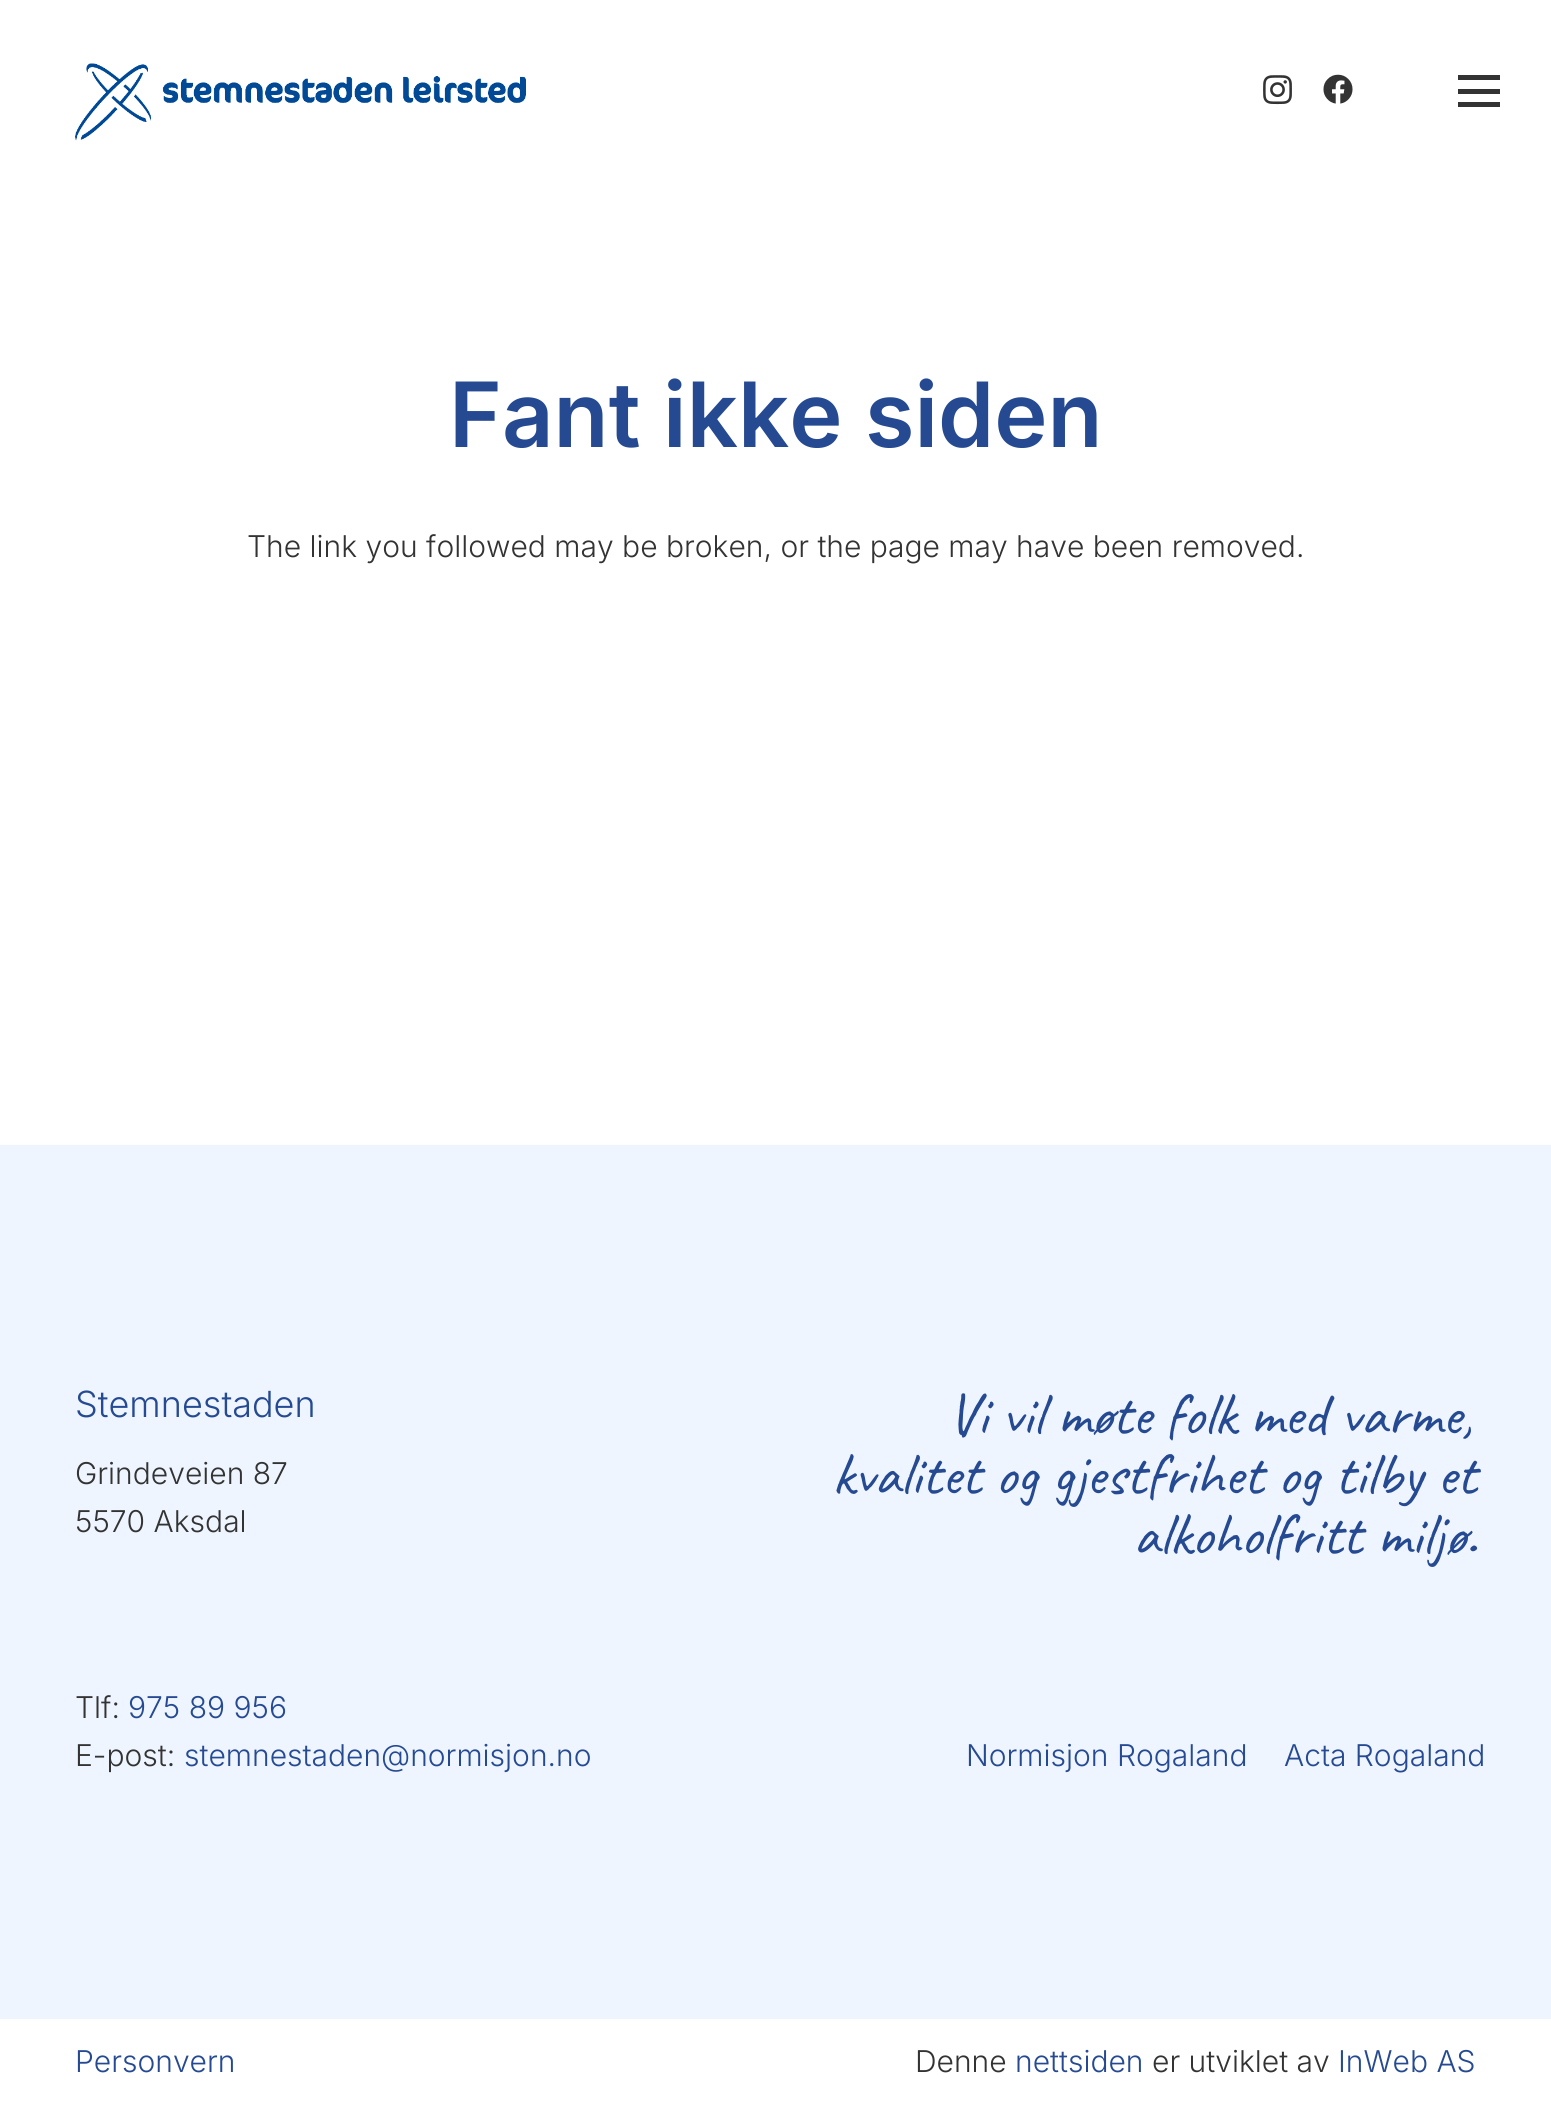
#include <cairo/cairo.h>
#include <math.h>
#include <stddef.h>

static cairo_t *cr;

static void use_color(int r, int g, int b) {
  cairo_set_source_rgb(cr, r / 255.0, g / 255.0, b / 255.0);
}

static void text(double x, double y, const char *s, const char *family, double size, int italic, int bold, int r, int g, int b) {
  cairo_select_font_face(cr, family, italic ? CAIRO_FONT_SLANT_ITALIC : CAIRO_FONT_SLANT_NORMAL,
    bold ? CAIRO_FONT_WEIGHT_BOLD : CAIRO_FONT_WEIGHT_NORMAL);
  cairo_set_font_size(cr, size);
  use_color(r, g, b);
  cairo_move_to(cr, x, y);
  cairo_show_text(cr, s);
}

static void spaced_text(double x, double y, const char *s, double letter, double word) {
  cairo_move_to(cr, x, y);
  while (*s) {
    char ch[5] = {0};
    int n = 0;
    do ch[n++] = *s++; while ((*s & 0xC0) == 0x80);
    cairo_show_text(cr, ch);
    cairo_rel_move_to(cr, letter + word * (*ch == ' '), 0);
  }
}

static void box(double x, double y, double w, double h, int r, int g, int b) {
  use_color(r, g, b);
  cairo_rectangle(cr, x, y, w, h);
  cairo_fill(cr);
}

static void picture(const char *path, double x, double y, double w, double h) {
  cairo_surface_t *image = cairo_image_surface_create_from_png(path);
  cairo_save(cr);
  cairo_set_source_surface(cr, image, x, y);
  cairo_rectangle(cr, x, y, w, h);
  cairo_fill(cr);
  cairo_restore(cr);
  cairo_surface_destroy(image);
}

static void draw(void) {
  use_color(255, 255, 255);
  cairo_paint(cr);
  picture("img_01.png", 75, 63, 451, 78);
  picture("img_02.png", 1263, 75, 29, 30);
  picture("img_03.png", 1323, 74, 30, 30);
  box(1458, 89, 42, 5, 51, 51, 51);
  box(1458, 75, 42, 5, 51, 51, 51);
  box(1458, 102, 42, 5, 51, 51, 51);
  box(0, 1145, 1551, 874, 238, 245, 255);
  text(449, 447, "Fant ikke siden", "Inter SemiBold", 90, 0, 0, 38, 74, 146);
  text(247, 557, "The link you followed may be broken, or the page may have been removed.", "Inter Light", 30, 0, 0, 51, 51, 51);
  text(75, 1417, "Stemnestaden", "Inter Light", 36, 0, 0, 38, 74, 146);
  text(75, 1484, "Grindeveien 87", "Inter Light", 30, 0, 0, 51, 51, 51);
  text(75, 1532, "5570 Aksdal", "Inter Light", 30, 0, 0, 51, 51, 51);
  text(75, 1718, "Tlf:", "Inter Light", 30, 0, 0, 51, 51, 51);
  text(128, 1718, "975 89 956", "Inter Light", 30, 0, 0, 38, 74, 146);
  text(75, 1766, "E-post:", "Inter Light", 30, 0, 0, 51, 51, 51);
  text(184, 1766, "stemnestaden@normisjon.no", "Inter Light", 30, 0, 0, 38, 74, 146);
  cairo_select_font_face(cr, "Caveat", CAIRO_FONT_SLANT_NORMAL, CAIRO_FONT_WEIGHT_NORMAL);
  cairo_set_font_size(cr, 60);
  spaced_text(947, 1434, "Vi vil møte folk med varme,", 0, -0.5);
  text(832, 1494, "kvalitet og gjestfrihet og tilby et", "Caveat", 60, 0, 0, 38, 74, 146);
  spaced_text(1133, 1554, "alkoholfritt miljø.", 0, 1);
  text(966, 1766, "Normisjon Rogaland", "Inter Light", 30, 0, 0, 38, 74, 146);
  text(1284, 1766, "Acta Rogaland", "Inter Light", 30, 0, 0, 38, 74, 146);
  text(75, 2072, "Personvern", "Inter Light", 30, 0, 0, 38, 74, 146);
  text(915, 2072, "Denne", "Inter Light", 30, 0, 0, 51, 51, 51);
  text(1015, 2072, "nettsiden", "Inter Light", 30, 0, 0, 38, 74, 146);
  text(1152, 2072, "er utviklet av", "Inter Light", 30, 0, 0, 51, 51, 51);
  text(1338, 2072, "InWeb AS", "Inter Light", 30, 0, 0, 38, 74, 146);
}

int main(void) {
  cairo_surface_t *surface = cairo_image_surface_create(CAIRO_FORMAT_RGB24, 1551, 2102);
  cr = cairo_create(surface);
  cairo_font_options_t *options = cairo_font_options_create();
  cairo_font_options_set_hint_metrics(options, CAIRO_HINT_METRICS_OFF);
  cairo_font_options_set_hint_style(options, CAIRO_HINT_STYLE_NONE);
  cairo_set_font_options(cr, options);
  cairo_set_miter_limit(cr, 4);
  draw();
  cairo_surface_write_to_png(surface, "out.png");
  cairo_font_options_destroy(options);
  cairo_destroy(cr);
  cairo_surface_destroy(surface);
  return 0;
}
